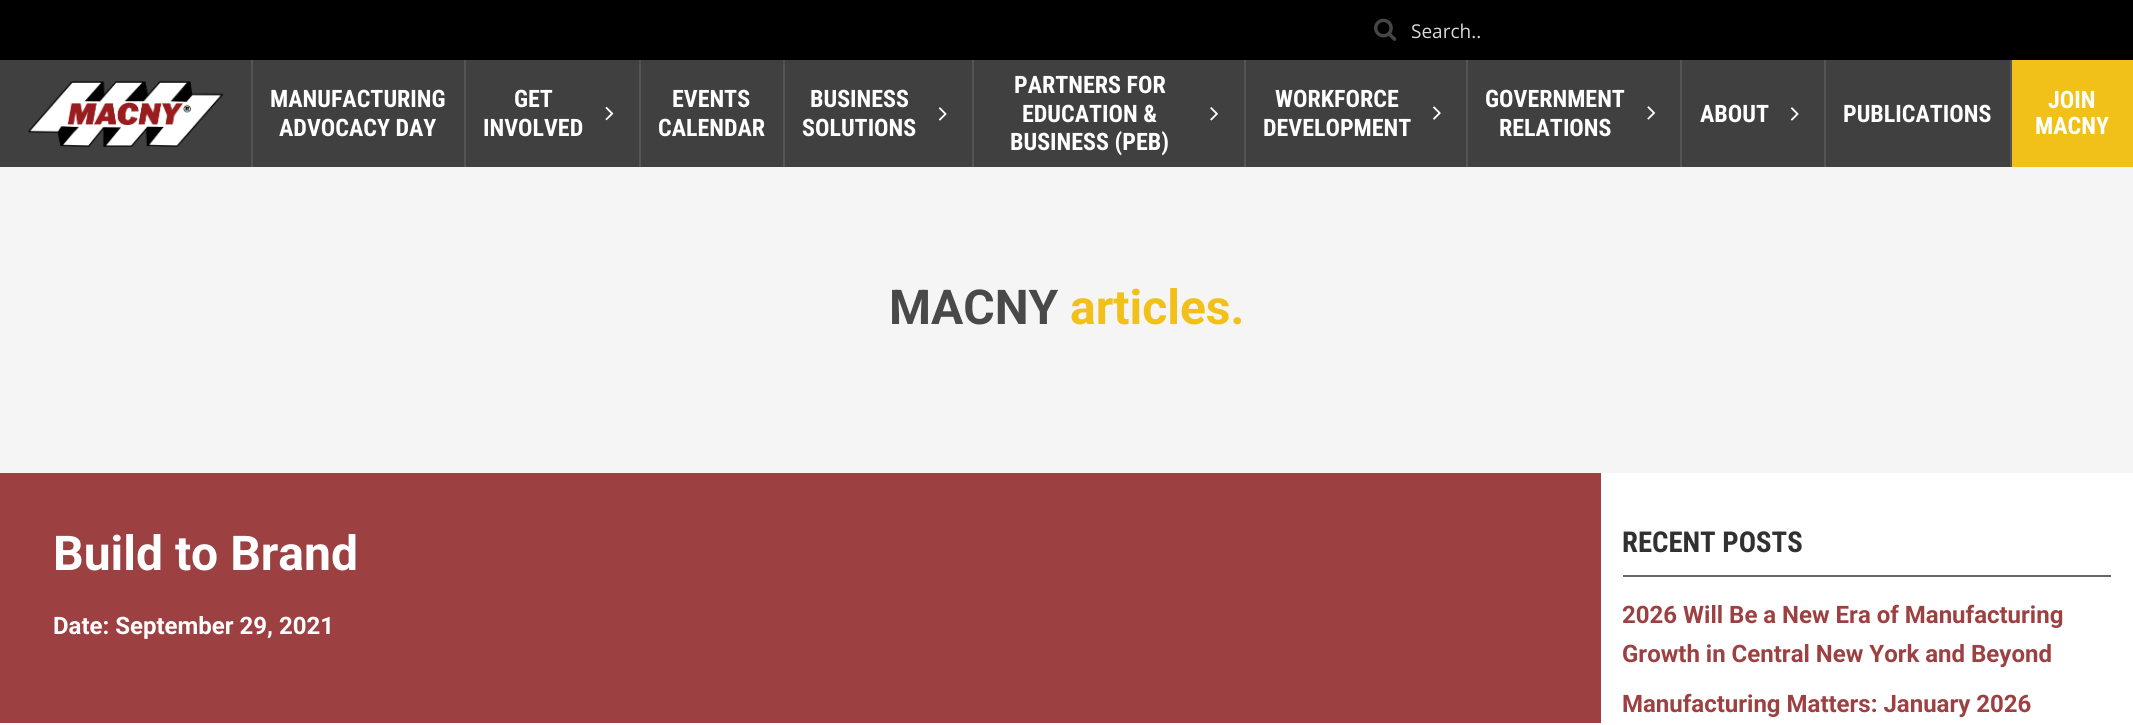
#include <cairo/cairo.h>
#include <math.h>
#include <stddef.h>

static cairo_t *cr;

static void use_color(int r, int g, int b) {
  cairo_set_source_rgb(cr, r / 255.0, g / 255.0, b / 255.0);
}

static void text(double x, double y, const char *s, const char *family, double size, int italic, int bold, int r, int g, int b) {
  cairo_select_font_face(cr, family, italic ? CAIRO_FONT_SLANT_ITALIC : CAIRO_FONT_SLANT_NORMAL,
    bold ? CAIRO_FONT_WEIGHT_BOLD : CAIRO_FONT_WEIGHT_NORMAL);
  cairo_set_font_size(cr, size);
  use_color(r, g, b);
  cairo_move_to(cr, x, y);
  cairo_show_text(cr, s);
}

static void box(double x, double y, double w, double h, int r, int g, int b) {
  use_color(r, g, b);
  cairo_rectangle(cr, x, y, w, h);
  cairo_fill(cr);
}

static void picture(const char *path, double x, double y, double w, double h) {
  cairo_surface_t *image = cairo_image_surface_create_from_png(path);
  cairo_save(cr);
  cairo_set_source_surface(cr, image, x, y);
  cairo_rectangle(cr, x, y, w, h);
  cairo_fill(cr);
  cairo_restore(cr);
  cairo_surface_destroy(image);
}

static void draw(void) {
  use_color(255, 255, 255);
  cairo_paint(cr);
  box(0, 0, 2133, 60, 0, 0, 0);
  picture("img_01.png", 1374, 18, 23, 23);
  box(0, 60, 2010, 107, 64, 64, 64);
  picture("img_02.png", 28, 81, 196, 66);
  box(464, 60, 2, 107, 84, 84, 84);
  box(251, 60, 2, 107, 84, 84, 84);
  box(639, 60, 2, 107, 84, 84, 84);
  picture("img_03.png", 605, 106, 9, 15);
  box(783, 60, 2, 107, 84, 84, 84);
  box(972, 60, 2, 107, 84, 84, 84);
  picture("img_04.png", 938, 107, 9, 14);
  box(1244, 60, 2, 107, 84, 84, 84);
  picture("img_05.png", 1210, 107, 8, 14);
  box(1466, 60, 2, 107, 84, 84, 84);
  picture("img_06.png", 1433, 106, 8, 14);
  box(1680, 60, 2, 107, 84, 84, 84);
  picture("img_07.png", 1647, 106, 9, 14);
  box(1824, 60, 2, 107, 84, 84, 84);
  picture("img_04.png", 1790, 107, 9, 14);
  box(2010, 60, 2, 107, 84, 84, 84);
  box(2012, 60, 121, 107, 241, 193, 26);
  box(0, 167, 2133, 306, 245, 245, 245);
  box(0, 473, 1601, 250, 156, 64, 65);
  box(1623, 575, 488, 2, 102, 102, 102);
  text(1411, 38, "Search..", "Open Sans", 19, 0, 0, 218, 218, 218);
  text(270, 107, "MANUFACTURING", "Roboto Condensed", 24, 0, 1, 255, 255, 255);
  text(279, 136, "ADVOCACY DAY", "Roboto Condensed", 24, 0, 1, 255, 255, 255);
  text(514, 107, "GET", "Roboto Condensed", 24, 0, 1, 255, 255, 255);
  text(483, 136, "INVOLVED", "Roboto Condensed", 24, 0, 1, 255, 255, 255);
  text(672, 107, "EVENTS", "Roboto Condensed", 24, 0, 1, 255, 255, 255);
  text(658, 136, "CALENDAR", "Roboto Condensed", 24, 0, 1, 255, 255, 255);
  text(810, 107, "BUSINESS", "Roboto Condensed", 24, 0, 1, 255, 255, 255);
  text(802, 136, "SOLUTIONS", "Roboto Condensed", 24, 0, 1, 255, 255, 255);
  text(1014, 93, "PARTNERS FOR", "Roboto Condensed", 24, 0, 1, 255, 255, 255);
  text(1022, 122, "EDUCATION &", "Roboto Condensed", 24, 0, 1, 255, 255, 255);
  text(1010, 150, "BUSINESS (PEB)", "Roboto Condensed", 24, 0, 1, 255, 255, 255);
  text(1275, 107, "WORKFORCE", "Roboto Condensed", 24, 0, 1, 255, 255, 255);
  text(1263, 136, "DEVELOPMENT", "Roboto Condensed", 24, 0, 1, 255, 255, 255);
  text(1485, 107, "GOVERNMENT", "Roboto Condensed", 24, 0, 1, 255, 255, 255);
  text(1499, 136, "RELATIONS", "Roboto Condensed", 24, 0, 1, 255, 255, 255);
  text(1700, 122, "ABOUT", "Roboto Condensed", 24, 0, 1, 255, 255, 255);
  text(1843, 122, "PUBLICATIONS", "Roboto Condensed", 24, 0, 1, 255, 255, 255);
  text(2048, 108, "JOIN", "Roboto Condensed", 24, 0, 1, 255, 255, 255);
  text(2035, 134, "MACNY", "Roboto Condensed", 24, 0, 1, 255, 255, 255);
  text(889, 324, "MACNY", "Roboto", 48, 0, 1, 73, 73, 73);
  text(1070, 324, "articles.", "Roboto", 48, 0, 1, 241, 193, 25);
  text(53, 570, "Build to Brand", "Roboto", 48, 0, 1, 255, 255, 255);
  text(53, 634, "Date: September 29, 2021", "Roboto", 24, 0, 1, 255, 255, 255);
  text(1622, 552, "RECENT POSTS", "Roboto Condensed", 28.75, 0, 1, 49, 49, 49);
  text(1622, 623, "2026 Will Be a New Era of Manufacturing", "Roboto", 24, 0, 1, 156, 64, 65);
  text(1622, 662, "Growth in Central New York and Beyond", "Roboto", 24, 0, 1, 156, 64, 65);
  text(1622, 712, "Manufacturing Matters: January 2026", "Roboto", 24, 0, 1, 156, 64, 65);
}

int main(void) {
  cairo_surface_t *surface = cairo_image_surface_create(CAIRO_FORMAT_RGB24, 2133, 725);
  cr = cairo_create(surface);
  cairo_font_options_t *options = cairo_font_options_create();
  cairo_font_options_set_hint_metrics(options, CAIRO_HINT_METRICS_OFF);
  cairo_font_options_set_hint_style(options, CAIRO_HINT_STYLE_NONE);
  cairo_set_font_options(cr, options);
  cairo_set_miter_limit(cr, 4);
  draw();
  cairo_surface_write_to_png(surface, "out.png");
  cairo_font_options_destroy(options);
  cairo_destroy(cr);
  cairo_surface_destroy(surface);
  return 0;
}
